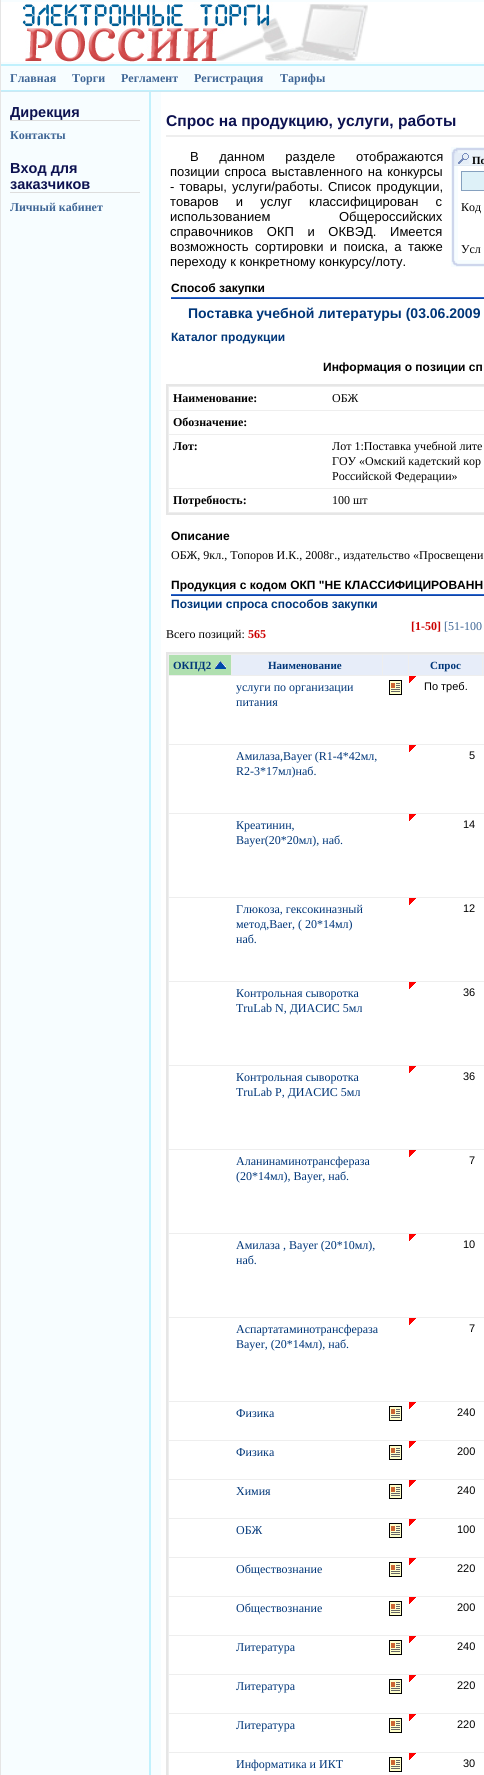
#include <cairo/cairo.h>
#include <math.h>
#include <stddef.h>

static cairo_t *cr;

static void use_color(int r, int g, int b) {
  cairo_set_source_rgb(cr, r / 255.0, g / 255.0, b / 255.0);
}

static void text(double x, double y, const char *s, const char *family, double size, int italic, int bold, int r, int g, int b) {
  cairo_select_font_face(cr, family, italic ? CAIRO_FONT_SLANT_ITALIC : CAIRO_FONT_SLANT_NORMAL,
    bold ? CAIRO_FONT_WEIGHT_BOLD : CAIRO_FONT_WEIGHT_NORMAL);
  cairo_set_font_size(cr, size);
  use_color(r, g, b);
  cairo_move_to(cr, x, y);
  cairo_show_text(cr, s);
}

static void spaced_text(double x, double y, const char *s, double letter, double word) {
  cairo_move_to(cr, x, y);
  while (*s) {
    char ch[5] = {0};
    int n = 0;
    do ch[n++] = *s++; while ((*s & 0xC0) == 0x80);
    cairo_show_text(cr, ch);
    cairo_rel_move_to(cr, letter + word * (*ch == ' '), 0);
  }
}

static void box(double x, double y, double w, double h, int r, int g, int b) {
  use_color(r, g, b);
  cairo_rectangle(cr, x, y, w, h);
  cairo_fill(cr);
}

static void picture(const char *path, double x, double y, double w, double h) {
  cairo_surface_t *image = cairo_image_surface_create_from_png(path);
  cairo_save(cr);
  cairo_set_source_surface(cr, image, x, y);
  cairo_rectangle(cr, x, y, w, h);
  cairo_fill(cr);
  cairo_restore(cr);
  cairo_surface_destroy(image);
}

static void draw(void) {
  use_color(247, 253, 255);
  cairo_paint(cr);
  box(0, 0, 1, 1775, 229, 229, 229);
  box(1, 2, 483, 60, 255, 255, 255);
  picture("img_01.png", 22, 2, 346, 60);
  box(1, 64, 483, 2, 193, 241, 253);
  box(1, 90, 483, 1, 193, 241, 253);
  box(1, 91, 483, 1, 204, 232, 243);
  box(149, 92, 2, 1683, 193, 241, 253);
  box(10, 120, 130, 1, 221, 221, 221);
  box(10, 192, 130, 1, 221, 221, 221);
  box(161, 92, 323, 1683, 255, 255, 255);
  box(166, 135, 318, 2, 238, 238, 238);
  picture("img_02.png", 451, 147, 7, 19);
  picture("img_03.png", 458, 147, 26, 19);
  picture("img_04.png", 458, 153, 11, 11);
  picture("img_05.png", 451, 166, 7, 94);
  use_color(222, 241, 248);
  cairo_rectangle(cr, 461.5, 171.5, 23, 19);
  cairo_fill_preserve(cr);
  use_color(134, 161, 191);
  cairo_set_line_width(cr, 1);
  cairo_stroke(cr);
  picture("img_06.png", 451, 260, 7, 7);
  picture("img_07.png", 458, 260, 26, 7);
  picture("img_08.png", 171, 297, 313, 2);
  use_color(238, 238, 238);
  cairo_rectangle(cr, 167, 385, 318, 129);
  cairo_fill_preserve(cr);
  use_color(230, 230, 230);
  cairo_set_line_width(cr, 2);
  cairo_stroke(cr);
  box(169, 387, 315, 23, 255, 255, 255);
  box(169, 411, 315, 23, 255, 255, 255);
  box(169, 435, 315, 53, 255, 255, 255);
  box(169, 489, 315, 23, 255, 255, 255);
  picture("img_08.png", 171, 594, 313, 2);
  use_color(238, 238, 238);
  cairo_rectangle(cr, 167, 653, 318, 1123);
  cairo_fill_preserve(cr);
  use_color(230, 230, 230);
  cairo_stroke(cr);
  box(169, 655, 62, 20, 176, 224, 176);
  picture("img_09.png", 215, 661, 11, 8);
  box(232, 655, 150, 20, 231, 237, 249);
  box(383, 655, 25, 20, 231, 237, 249);
  box(409, 655, 73, 20, 231, 237, 249);
  box(483, 655, 1, 20, 231, 237, 249);
  box(169, 676, 315, 68, 255, 255, 255);
  picture("img_10.png", 389, 680, 13, 15);
  picture("img_11.png", 409, 676, 7, 7);
  box(169, 745, 315, 68, 255, 255, 255);
  picture("img_11.png", 409, 745, 7, 7);
  box(169, 814, 315, 83, 255, 255, 255);
  picture("img_11.png", 409, 814, 7, 7);
  box(169, 898, 315, 83, 255, 255, 255);
  picture("img_11.png", 409, 898, 7, 7);
  box(169, 982, 315, 83, 255, 255, 255);
  picture("img_11.png", 409, 982, 7, 7);
  box(169, 1066, 315, 83, 255, 255, 255);
  picture("img_11.png", 409, 1066, 7, 7);
  box(169, 1150, 315, 83, 255, 255, 255);
  picture("img_11.png", 409, 1150, 7, 7);
  box(169, 1234, 315, 83, 255, 255, 255);
  picture("img_11.png", 409, 1234, 7, 7);
  box(169, 1318, 315, 83, 255, 255, 255);
  picture("img_11.png", 409, 1318, 7, 7);
  box(169, 1402, 315, 38, 255, 255, 255);
  picture("img_10.png", 389, 1406, 13, 15);
  picture("img_11.png", 409, 1402, 7, 7);
  box(169, 1441, 315, 38, 255, 255, 255);
  picture("img_10.png", 389, 1445, 13, 15);
  picture("img_11.png", 409, 1441, 7, 7);
  box(169, 1480, 315, 38, 255, 255, 255);
  picture("img_10.png", 389, 1484, 13, 15);
  picture("img_11.png", 409, 1480, 7, 7);
  box(169, 1519, 315, 38, 255, 255, 255);
  picture("img_10.png", 389, 1523, 13, 15);
  picture("img_11.png", 409, 1519, 7, 7);
  box(169, 1558, 315, 38, 255, 255, 255);
  picture("img_10.png", 389, 1562, 13, 15);
  picture("img_11.png", 409, 1558, 7, 7);
  box(169, 1597, 315, 38, 255, 255, 255);
  picture("img_10.png", 389, 1601, 13, 15);
  picture("img_11.png", 409, 1597, 7, 7);
  box(169, 1636, 315, 38, 255, 255, 255);
  picture("img_10.png", 389, 1640, 13, 15);
  picture("img_11.png", 409, 1636, 7, 7);
  box(169, 1675, 315, 38, 255, 255, 255);
  picture("img_10.png", 389, 1679, 13, 15);
  picture("img_11.png", 409, 1675, 7, 7);
  box(169, 1714, 315, 38, 255, 255, 255);
  picture("img_10.png", 389, 1718, 13, 15);
  picture("img_11.png", 409, 1714, 7, 7);
  box(169, 1753, 315, 22, 255, 255, 255);
  picture("img_10.png", 389, 1757, 13, 15);
  picture("img_11.png", 409, 1753, 7, 7);
  text(10, 82, "Главная", "Liberation Serif", 12, 0, 1, 63, 102, 150);
  text(72, 82, "Торги", "Liberation Serif", 12, 0, 1, 63, 102, 150);
  text(121, 82, "Регламент", "Liberation Serif", 12, 0, 1, 63, 102, 150);
  text(194, 82, "Регистрация", "Liberation Serif", 12, 0, 1, 63, 102, 150);
  text(280, 82, "Тарифы", "Liberation Serif", 12, 0, 1, 63, 102, 150);
  text(10, 117, "Дирекция", "Liberation Sans", 14.5, 0, 1, 12, 17, 80);
  text(10, 139, "Контакты", "Liberation Serif", 12, 0, 1, 63, 102, 150);
  text(10, 173, "Вход для", "Liberation Sans", 14.5, 0, 1, 12, 17, 80);
  text(10, 189, "заказчиков", "Liberation Sans", 14.5, 0, 1, 12, 17, 80);
  text(10, 211, "Личный кабинет", "Liberation Serif", 12, 0, 1, 63, 102, 150);
  text(166, 126, "Спрос на продукцию, услуги, работы", "Liberation Sans", 15.6, 0, 1, 12, 17, 80);
  cairo_select_font_face(cr, "Liberation Sans", CAIRO_FONT_SLANT_NORMAL, CAIRO_FONT_WEIGHT_NORMAL);
  cairo_set_font_size(cr, 13);
  use_color(0, 0, 0);
  spaced_text(190, 161, "В данном разделе отображаются", 0, 17);
  spaced_text(170, 176, "позиции спроса выставленного на конкурсы", 0, 1.5);
  spaced_text(170, 191, "- товары, услуги/работы. Список продукции,", 0, 1.5);
  spaced_text(170, 206, "товаров и услуг классифицирован с", 0, 13.5);
  spaced_text(170, 221, "использованием Общероссийских", 0, 65);
  spaced_text(170, 236, "справочников ОКП и ОКВЭД. Имеется", 0, 10);
  spaced_text(170, 251, "возможность сортировки и поиска, а также", 0, 2.75);
  text(170, 266, "переходу к конкретному конкурсу/лоту.", "Liberation Sans", 13, 0, 0, 0, 0, 0);
  text(472, 164, "По", "Liberation Serif", 11, 0, 1, 0, 0, 0);
  text(461, 211, "Код", "Liberation Serif", 12, 0, 0, 0, 0, 0);
  text(461, 253, "Усл", "Liberation Serif", 12, 0, 0, 0, 0, 0);
  text(171, 292, "Способ закупки", "Liberation Sans", 12, 0, 1, 0, 0, 0);
  text(188, 318, "Поставка учебной литературы (03.06.2009", "Liberation Sans", 14, 0, 1, 0, 54, 121);
  text(171, 341, "Каталог продукции", "Liberation Sans", 12, 0, 1, 0, 54, 121);
  text(323, 371, "Информация о позиции сп", "Liberation Sans", 12, 0, 1, 0, 0, 0);
  text(173, 402, "Наименование:", "Liberation Serif", 12, 0, 1, 0, 0, 0);
  text(332, 402, "ОБЖ", "Liberation Serif", 12, 0, 0, 0, 0, 0);
  text(173, 426, "Обозначение:", "Liberation Serif", 12, 0, 1, 0, 0, 0);
  text(173, 450, "Лот:", "Liberation Serif", 12, 0, 1, 0, 0, 0);
  text(332, 450, "Лот 1:Поставка учебной лите", "Liberation Serif", 12, 0, 0, 0, 0, 0);
  text(332, 465, "ГОУ «Омский кадетский кор", "Liberation Serif", 12, 0, 0, 0, 0, 0);
  text(332, 480, "Российской Федерации»", "Liberation Serif", 12, 0, 0, 0, 0, 0);
  text(173, 504, "Потребность:", "Liberation Serif", 12, 0, 1, 0, 0, 0);
  text(332, 504, "100 шт", "Liberation Serif", 12, 0, 0, 0, 0, 0);
  text(171, 540, "Описание", "Liberation Sans", 12, 0, 1, 0, 0, 0);
  text(171, 559, "ОБЖ, 9кл., Топоров И.К., 2008г., издательство «Просвещени", "Liberation Serif", 12, 0, 0, 0, 0, 0);
  text(171, 589, "Продукция с кодом ОКП \"НЕ КЛАССИФИЦИРОВАНН", "Liberation Sans", 12, 0, 1, 0, 0, 0);
  text(171, 608, "Позиции спроса способов закупки", "Liberation Sans", 12, 0, 1, 0, 54, 121);
  text(411, 630, "[1-50]", "Liberation Serif", 12, 0, 1, 204, 0, 0);
  text(444, 630, "[51-100", "Liberation Serif", 12, 0, 0, 63, 102, 150);
  text(166, 638, "Всего позиций:", "Liberation Serif", 12, 0, 0, 0, 0, 0);
  text(248, 638, "565", "Liberation Serif", 12, 0, 1, 204, 0, 0);
  text(173, 669, "ОКПД2", "Liberation Serif", 11, 0, 1, 0, 54, 121);
  text(268, 669, "Наименование", "Liberation Serif", 11, 0, 1, 0, 54, 121);
  text(430, 669, "Спрос", "Liberation Serif", 11, 0, 1, 0, 54, 121);
  text(236, 691, "услуги по организации", "Liberation Serif", 12, 0, 0, 0, 54, 121);
  text(236, 706, "питания", "Liberation Serif", 12, 0, 0, 0, 54, 121);
  text(424, 690, "По треб.", "Liberation Sans", 11, 0, 0, 0, 0, 0);
  text(236, 760, "Амилаза,Bayer (R1-4*42мл,", "Liberation Serif", 12, 0, 0, 0, 54, 121);
  text(236, 775, "R2-3*17мл)наб.", "Liberation Serif", 12, 0, 0, 0, 54, 121);
  text(469, 759, "5", "Liberation Sans", 11, 0, 0, 0, 0, 0);
  text(236, 829, "Креатинин,", "Liberation Serif", 12, 0, 0, 0, 54, 121);
  text(236, 844, "Bayer(20*20мл), наб.", "Liberation Serif", 12, 0, 0, 0, 54, 121);
  text(463, 828, "14", "Liberation Sans", 11, 0, 0, 0, 0, 0);
  text(236, 913, "Глюкоза, гексокиназный", "Liberation Serif", 12, 0, 0, 0, 54, 121);
  text(236, 928, "метод,Baer, ( 20*14мл)", "Liberation Serif", 12, 0, 0, 0, 54, 121);
  text(236, 943, "наб.", "Liberation Serif", 12, 0, 0, 0, 54, 121);
  text(463, 912, "12", "Liberation Sans", 11, 0, 0, 0, 0, 0);
  text(236, 997, "Контрольная сыворотка", "Liberation Serif", 12, 0, 0, 0, 54, 121);
  text(236, 1012, "TruLab N, ДИАСИС 5мл", "Liberation Serif", 12, 0, 0, 0, 54, 121);
  text(463, 996, "36", "Liberation Sans", 11, 0, 0, 0, 0, 0);
  text(236, 1081, "Контрольная сыворотка", "Liberation Serif", 12, 0, 0, 0, 54, 121);
  text(236, 1096, "TruLab P, ДИАСИС 5мл", "Liberation Serif", 12, 0, 0, 0, 54, 121);
  text(463, 1080, "36", "Liberation Sans", 11, 0, 0, 0, 0, 0);
  text(236, 1165, "Аланинаминотрансфераза", "Liberation Serif", 12, 0, 0, 0, 54, 121);
  text(236, 1180, "(20*14мл), Bayer, наб.", "Liberation Serif", 12, 0, 0, 0, 54, 121);
  text(469, 1164, "7", "Liberation Sans", 11, 0, 0, 0, 0, 0);
  text(236, 1249, "Амилаза , Bayer (20*10мл),", "Liberation Serif", 12, 0, 0, 0, 54, 121);
  text(236, 1264, "наб.", "Liberation Serif", 12, 0, 0, 0, 54, 121);
  text(463, 1248, "10", "Liberation Sans", 11, 0, 0, 0, 0, 0);
  text(236, 1333, "Аспартатаминотрансфераза", "Liberation Serif", 12, 0, 0, 0, 54, 121);
  text(236, 1348, "Bayer, (20*14мл), наб.", "Liberation Serif", 12, 0, 0, 0, 54, 121);
  text(469, 1332, "7", "Liberation Sans", 11, 0, 0, 0, 0, 0);
  text(236, 1417, "Физика", "Liberation Serif", 12, 0, 0, 0, 54, 121);
  text(457, 1416, "240", "Liberation Sans", 11, 0, 0, 0, 0, 0);
  text(236, 1456, "Физика", "Liberation Serif", 12, 0, 0, 0, 54, 121);
  text(457, 1455, "200", "Liberation Sans", 11, 0, 0, 0, 0, 0);
  text(236, 1495, "Химия", "Liberation Serif", 12, 0, 0, 0, 54, 121);
  text(457, 1494, "240", "Liberation Sans", 11, 0, 0, 0, 0, 0);
  text(236, 1534, "ОБЖ", "Liberation Serif", 12, 0, 0, 0, 54, 121);
  text(457, 1533, "100", "Liberation Sans", 11, 0, 0, 0, 0, 0);
  text(236, 1573, "Обществознание", "Liberation Serif", 12, 0, 0, 0, 54, 121);
  text(457, 1572, "220", "Liberation Sans", 11, 0, 0, 0, 0, 0);
  text(236, 1612, "Обществознание", "Liberation Serif", 12, 0, 0, 0, 54, 121);
  text(457, 1611, "200", "Liberation Sans", 11, 0, 0, 0, 0, 0);
  text(236, 1651, "Литература", "Liberation Serif", 12, 0, 0, 0, 54, 121);
  text(457, 1650, "240", "Liberation Sans", 11, 0, 0, 0, 0, 0);
  text(236, 1690, "Литература", "Liberation Serif", 12, 0, 0, 0, 54, 121);
  text(457, 1689, "220", "Liberation Sans", 11, 0, 0, 0, 0, 0);
  text(236, 1729, "Литература", "Liberation Serif", 12, 0, 0, 0, 54, 121);
  text(457, 1728, "220", "Liberation Sans", 11, 0, 0, 0, 0, 0);
  text(236, 1768, "Информатика и ИКТ", "Liberation Serif", 12, 0, 0, 0, 54, 121);
  text(463, 1767, "30", "Liberation Sans", 11, 0, 0, 0, 0, 0);
}

int main(void) {
  cairo_surface_t *surface = cairo_image_surface_create(CAIRO_FORMAT_RGB24, 484, 1775);
  cr = cairo_create(surface);
  cairo_font_options_t *options = cairo_font_options_create();
  cairo_font_options_set_hint_metrics(options, CAIRO_HINT_METRICS_OFF);
  cairo_font_options_set_hint_style(options, CAIRO_HINT_STYLE_NONE);
  cairo_set_font_options(cr, options);
  cairo_set_miter_limit(cr, 4);
  draw();
  cairo_surface_write_to_png(surface, "out.png");
  cairo_font_options_destroy(options);
  cairo_destroy(cr);
  cairo_surface_destroy(surface);
  return 0;
}
